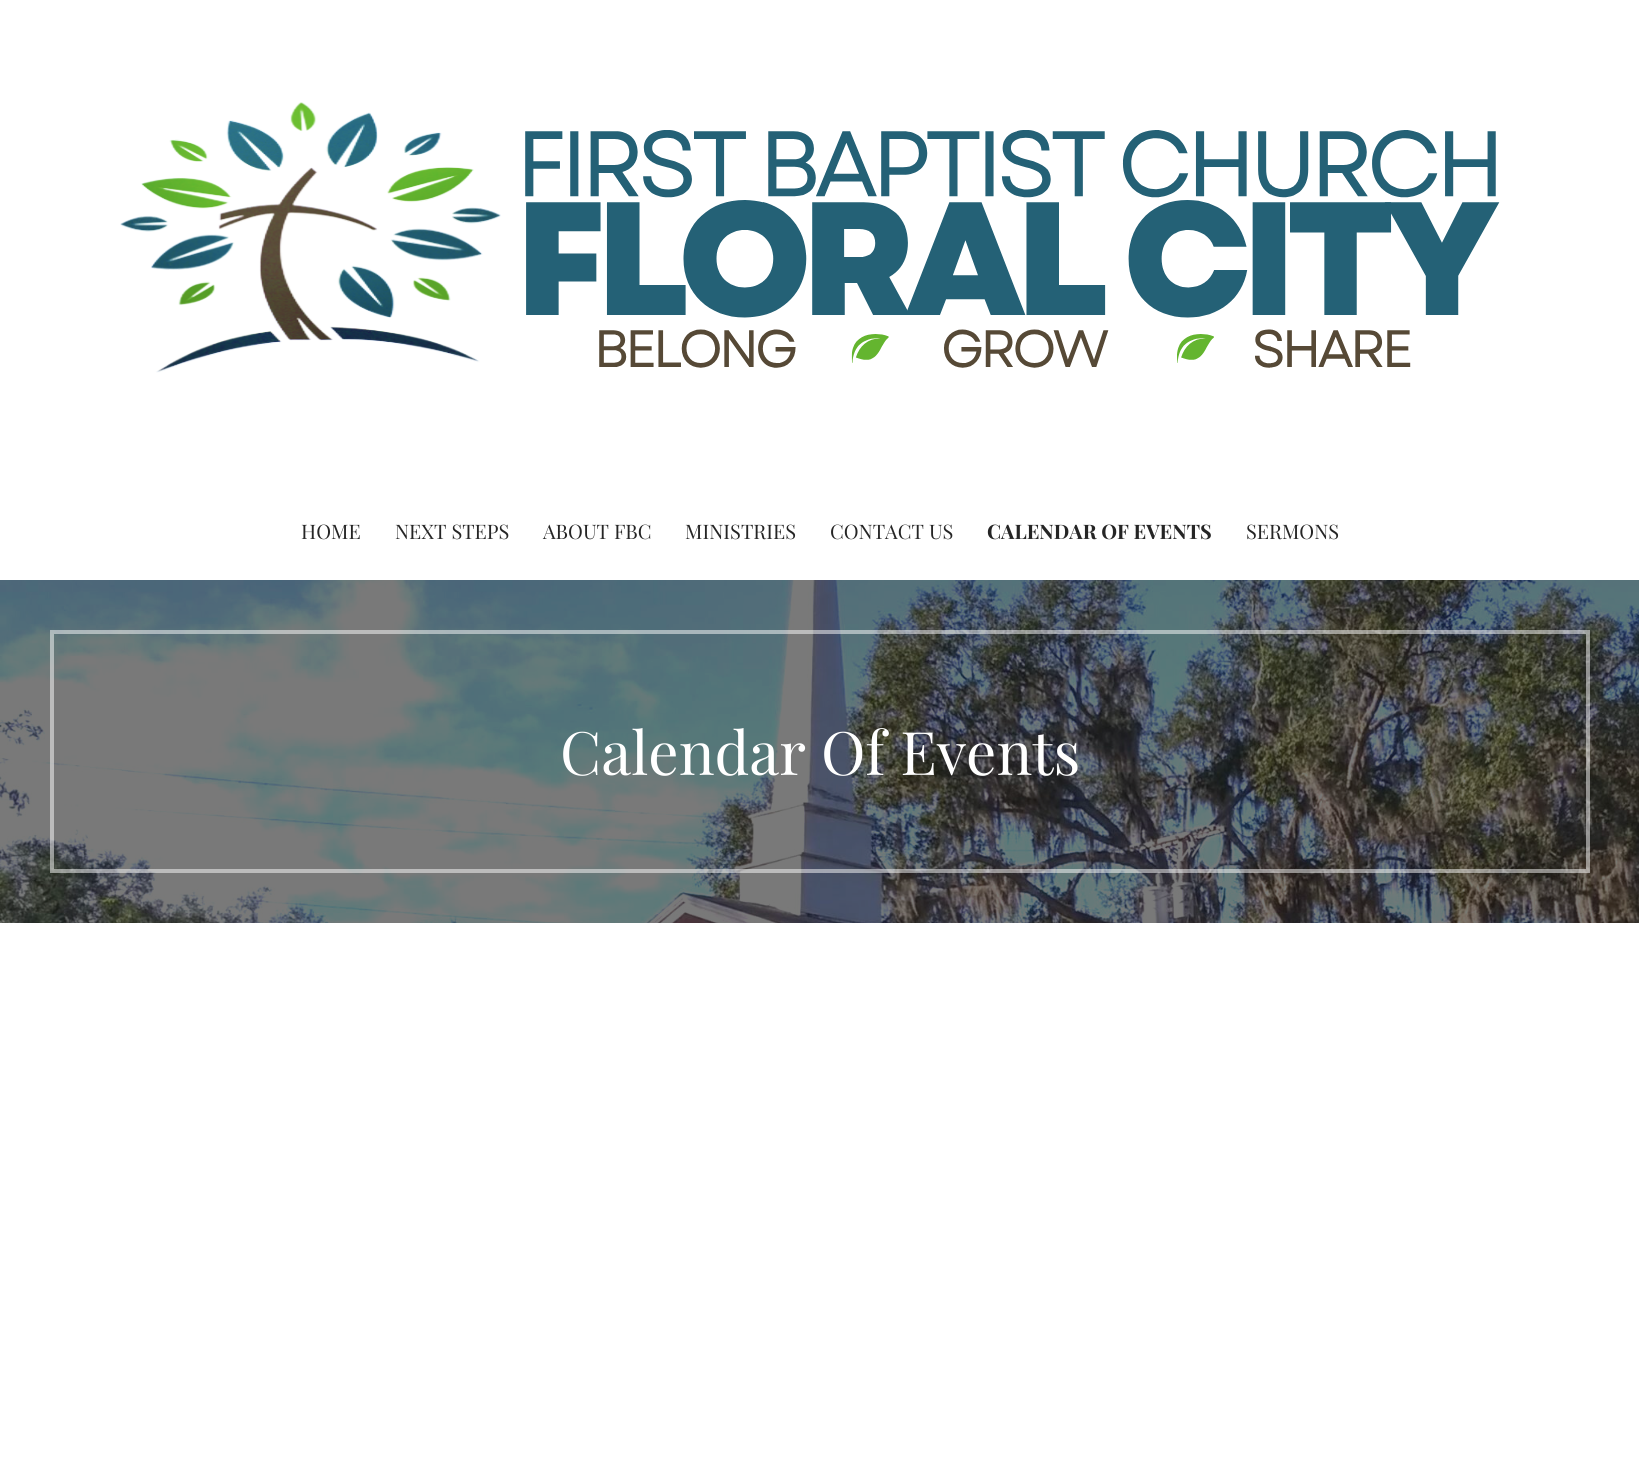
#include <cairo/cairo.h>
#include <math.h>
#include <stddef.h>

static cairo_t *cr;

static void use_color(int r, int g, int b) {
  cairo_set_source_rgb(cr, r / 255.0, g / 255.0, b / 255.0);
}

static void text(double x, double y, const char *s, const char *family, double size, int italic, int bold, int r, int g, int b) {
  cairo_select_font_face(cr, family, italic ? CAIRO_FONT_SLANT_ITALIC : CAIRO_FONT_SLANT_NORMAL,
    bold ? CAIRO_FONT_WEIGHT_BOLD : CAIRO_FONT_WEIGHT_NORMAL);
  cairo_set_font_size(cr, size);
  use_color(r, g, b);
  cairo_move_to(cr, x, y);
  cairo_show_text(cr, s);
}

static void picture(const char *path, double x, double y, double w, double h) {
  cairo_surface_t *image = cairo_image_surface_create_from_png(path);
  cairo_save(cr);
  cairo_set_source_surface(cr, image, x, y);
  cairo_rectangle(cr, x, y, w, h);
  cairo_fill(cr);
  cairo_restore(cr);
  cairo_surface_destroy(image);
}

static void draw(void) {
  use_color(255, 255, 255);
  cairo_paint(cr);
  picture("img_01.png", 120, 102, 1380, 271);
  picture("img_02.png", 0, 580, 1639, 343);
  cairo_rectangle(cr, 52, 632, 1536, 239);
  cairo_set_source_rgba(cr, 1, 1, 1, 0.5);
  cairo_set_line_width(cr, 4);
  cairo_stroke(cr);
  text(301, 539, "HOME", "Playfair Display", 20, 0, 0, 37, 37, 37);
  text(395, 539, "NEXT STEPS", "Playfair Display", 20, 0, 0, 37, 37, 37);
  text(543, 539, "ABOUT FBC", "Playfair Display", 20, 0, 0, 37, 37, 37);
  text(685, 539, "MINISTRIES", "Playfair Display", 20, 0, 0, 37, 37, 37);
  text(830, 539, "CONTACT US", "Playfair Display", 20, 0, 0, 37, 37, 37);
  text(987, 539, "CALENDAR OF EVENTS", "Playfair Display", 20, 0, 1, 37, 37, 37);
  text(1246, 539, "SERMONS", "Playfair Display", 20, 0, 0, 37, 37, 37);
  text(560, 775, "Calendar Of Events", "Playfair Display", 60, 0, 0, 255, 255, 255);
}

int main(void) {
  cairo_surface_t *surface = cairo_image_surface_create(CAIRO_FORMAT_RGB24, 1639, 1463);
  cr = cairo_create(surface);
  cairo_font_options_t *options = cairo_font_options_create();
  cairo_font_options_set_hint_metrics(options, CAIRO_HINT_METRICS_OFF);
  cairo_font_options_set_hint_style(options, CAIRO_HINT_STYLE_NONE);
  cairo_set_font_options(cr, options);
  cairo_set_miter_limit(cr, 4);
  draw();
  cairo_surface_write_to_png(surface, "out.png");
  cairo_font_options_destroy(options);
  cairo_destroy(cr);
  cairo_surface_destroy(surface);
  return 0;
}
